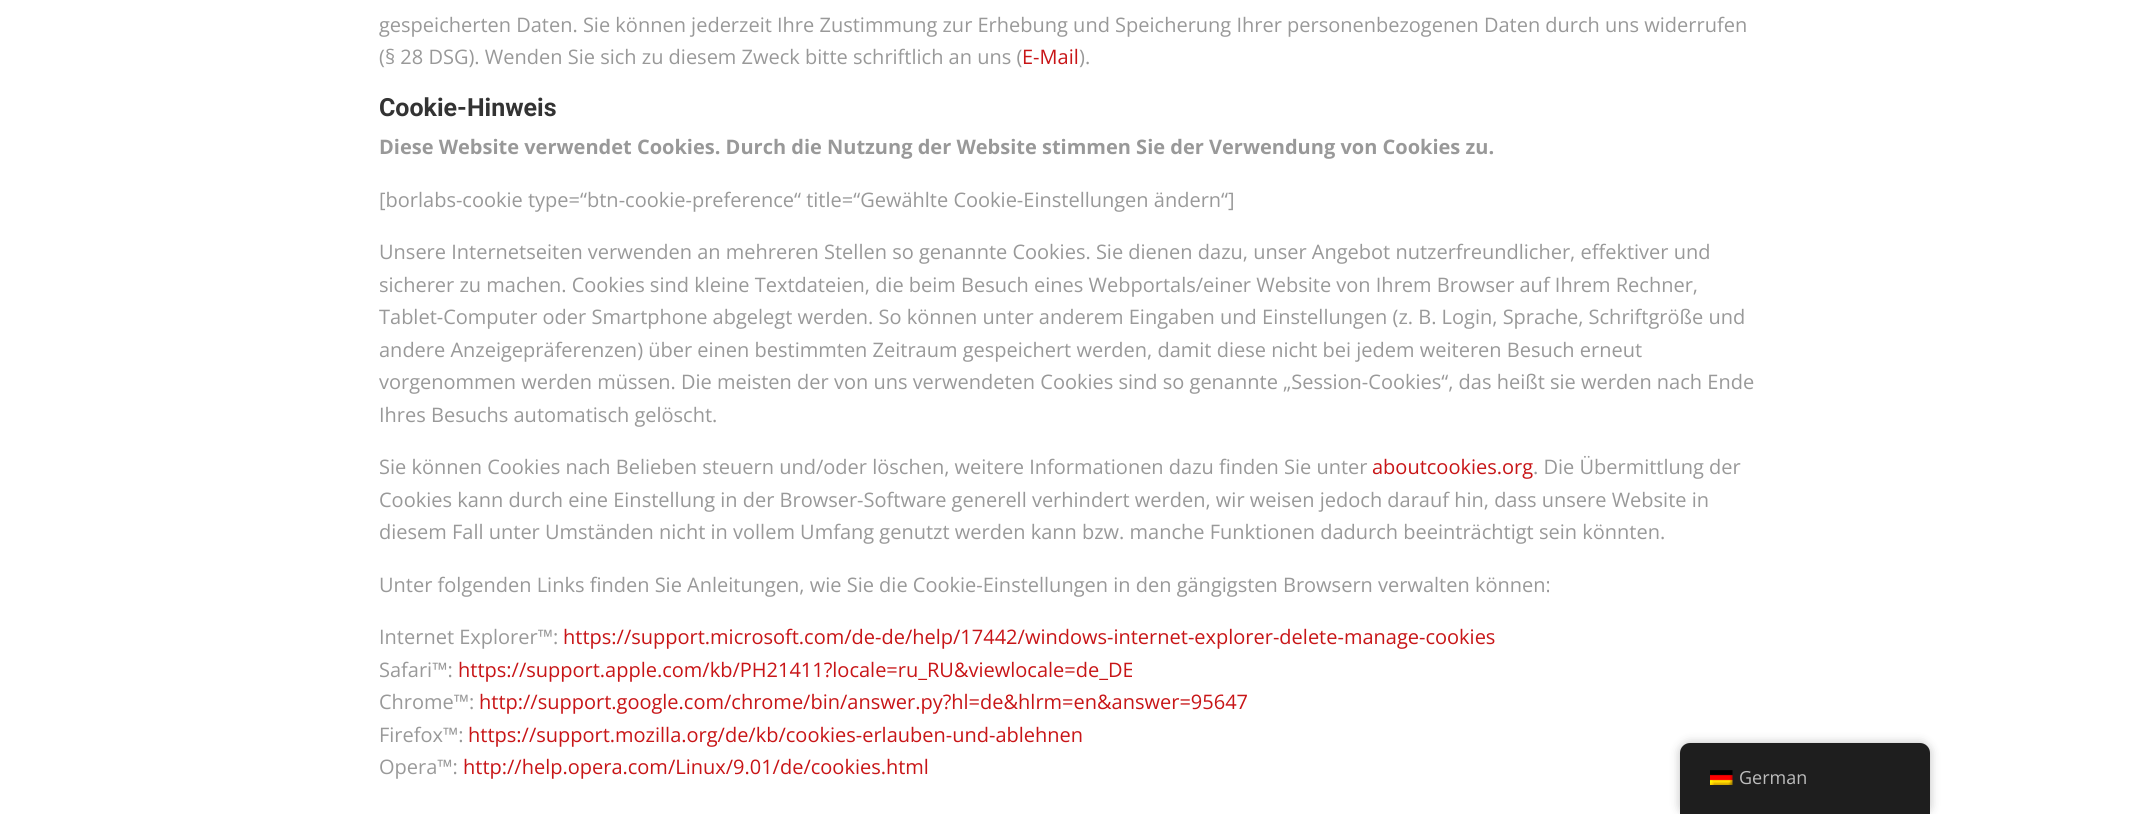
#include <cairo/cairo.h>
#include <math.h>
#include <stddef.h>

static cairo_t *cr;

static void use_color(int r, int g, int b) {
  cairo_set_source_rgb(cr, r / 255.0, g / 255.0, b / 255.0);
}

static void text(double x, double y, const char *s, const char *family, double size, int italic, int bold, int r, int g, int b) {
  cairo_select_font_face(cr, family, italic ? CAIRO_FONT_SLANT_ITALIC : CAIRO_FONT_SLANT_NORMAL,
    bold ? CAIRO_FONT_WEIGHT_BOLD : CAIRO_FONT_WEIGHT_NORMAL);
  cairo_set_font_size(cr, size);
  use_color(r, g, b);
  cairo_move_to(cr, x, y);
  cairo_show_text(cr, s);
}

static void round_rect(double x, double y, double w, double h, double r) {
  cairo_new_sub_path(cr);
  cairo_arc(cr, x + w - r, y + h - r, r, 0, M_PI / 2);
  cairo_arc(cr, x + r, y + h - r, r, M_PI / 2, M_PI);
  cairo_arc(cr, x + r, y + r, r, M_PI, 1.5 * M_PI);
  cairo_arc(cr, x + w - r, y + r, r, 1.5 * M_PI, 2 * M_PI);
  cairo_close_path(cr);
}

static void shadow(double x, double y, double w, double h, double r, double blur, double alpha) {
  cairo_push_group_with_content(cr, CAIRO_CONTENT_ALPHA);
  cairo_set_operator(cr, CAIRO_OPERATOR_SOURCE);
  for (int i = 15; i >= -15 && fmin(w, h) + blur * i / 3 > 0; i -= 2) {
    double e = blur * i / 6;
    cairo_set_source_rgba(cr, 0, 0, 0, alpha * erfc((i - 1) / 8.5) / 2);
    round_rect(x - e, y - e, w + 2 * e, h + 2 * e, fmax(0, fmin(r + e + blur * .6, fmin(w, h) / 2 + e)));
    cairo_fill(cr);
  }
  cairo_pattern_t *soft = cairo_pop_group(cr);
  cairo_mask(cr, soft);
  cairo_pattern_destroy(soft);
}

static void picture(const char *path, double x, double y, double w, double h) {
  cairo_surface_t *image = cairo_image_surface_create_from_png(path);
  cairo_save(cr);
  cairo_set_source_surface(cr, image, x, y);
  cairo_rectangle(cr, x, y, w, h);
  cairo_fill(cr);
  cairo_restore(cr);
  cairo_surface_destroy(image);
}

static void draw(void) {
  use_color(255, 255, 255);
  cairo_paint(cr);
  use_color(0, 0, 0);
  shadow(1680, 743, 250, 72, 10, 5, 0.25);
  use_color(30, 30, 30);
  cairo_new_path(cr);
  cairo_move_to(cr, 1690, 743);
  cairo_line_to(cr, 1920, 743);
  cairo_curve_to(cr, 1925.5, 743, 1930, 747.5, 1930, 753);
  cairo_line_to(cr, 1930, 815);
  cairo_line_to(cr, 1680, 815);
  cairo_line_to(cr, 1680, 753);
  cairo_curve_to(cr, 1680, 747.5, 1684.5, 743, 1690, 743);
  cairo_close_path(cr);
  cairo_fill(cr);
  picture("img_01.png", 1710, 770, 23, 15);
  text(379, 32, "gespeicherten Daten. Sie können jederzeit Ihre Zustimmung zur Erhebung und Speicherung Ihrer personenbezogenen Daten durch uns widerrufen", "Open Sans", 20, 0, 0, 153, 153, 153);
  text(379, 64, "(§ 28 DSG). Wenden Sie sich zu diesem Zweck bitte schriftlich an uns (", "Open Sans", 20, 0, 0, 153, 153, 153);
  text(1022, 64, "E-Mail", "Open Sans", 20, 0, 0, 200, 21, 23);
  text(1079, 64, ").", "Open Sans", 20, 0, 0, 153, 153, 153);
  text(379, 116, "Cookie-Hinweis", "Roboto", 25, 0, 1, 51, 51, 51);
  text(379, 154, "Diese Website verwendet Cookies. Durch die Nutzung der Website stimmen Sie der Verwendung von Cookies zu.", "Open Sans", 20, 0, 1, 153, 153, 153);
  text(379, 207, "[borlabs-cookie type=“btn-cookie-preference“ title=“Gewählte Cookie-Einstellungen ändern“]", "Open Sans", 20, 0, 0, 153, 153, 153);
  text(379, 259, "Unsere Internetseiten verwenden an mehreren Stellen so genannte Cookies. Sie dienen dazu, unser Angebot nutzerfreundlicher, effektiver und", "Open Sans", 20, 0, 0, 153, 153, 153);
  text(379, 292, "sicherer zu machen. Cookies sind kleine Textdateien, die beim Besuch eines Webportals/einer Website von Ihrem Browser auf Ihrem Rechner,", "Open Sans", 20, 0, 0, 153, 153, 153);
  text(379, 324, "Tablet-Computer oder Smartphone abgelegt werden. So können unter anderem Eingaben und Einstellungen (z. B. Login, Sprache, Schriftgröße und", "Open Sans", 20, 0, 0, 153, 153, 153);
  text(379, 357, "andere Anzeigepräferenzen) über einen bestimmten Zeitraum gespeichert werden, damit diese nicht bei jedem weiteren Besuch erneut", "Open Sans", 20, 0, 0, 153, 153, 153);
  text(379, 389, "vorgenommen werden müssen. Die meisten der von uns verwendeten Cookies sind so genannte „Session-Cookies“, das heißt sie werden nach Ende", "Open Sans", 20, 0, 0, 153, 153, 153);
  text(379, 422, "Ihres Besuchs automatisch gelöscht.", "Open Sans", 20, 0, 0, 153, 153, 153);
  text(379, 474, "Sie können Cookies nach Belieben steuern und/oder löschen, weitere Informationen dazu finden Sie unter", "Open Sans", 20, 0, 0, 153, 153, 153);
  text(1372, 474, "aboutcookies.org", "Open Sans", 20, 0, 0, 200, 21, 23);
  text(1533, 474, ". Die Übermittlung der", "Open Sans", 20, 0, 0, 153, 153, 153);
  text(379, 507, "Cookies kann durch eine Einstellung in der Browser-Software generell verhindert werden, wir weisen jedoch darauf hin, dass unsere Website in", "Open Sans", 20, 0, 0, 153, 153, 153);
  text(379, 539, "diesem Fall unter Umständen nicht in vollem Umfang genutzt werden kann bzw. manche Funktionen dadurch beeinträchtigt sein könnten.", "Open Sans", 20, 0, 0, 153, 153, 153);
  text(379, 592, "Unter folgenden Links finden Sie Anleitungen, wie Sie die Cookie-Einstellungen in den gängigsten Browsern verwalten können:", "Open Sans", 20, 0, 0, 153, 153, 153);
  text(379, 644, "Internet Explorer™:", "Open Sans", 20, 0, 0, 153, 153, 153);
  text(563, 644, "https://support.microsoft.com/de-de/help/17442/windows-internet-explorer-delete-manage-cookies", "Open Sans", 20, 0, 0, 200, 21, 23);
  text(379, 677, "Safari™:", "Open Sans", 20, 0, 0, 153, 153, 153);
  text(458, 677, "https://support.apple.com/kb/PH21411?locale=ru_RU&viewlocale=de_DE", "Open Sans", 20, 0, 0, 200, 21, 23);
  text(379, 709, "Chrome™:", "Open Sans", 20, 0, 0, 153, 153, 153);
  text(479, 709, "http://support.google.com/chrome/bin/answer.py?hl=de&hlrm=en&answer=95647", "Open Sans", 20, 0, 0, 200, 21, 23);
  text(379, 742, "Firefox™:", "Open Sans", 20, 0, 0, 153, 153, 153);
  text(468, 742, "https://support.mozilla.org/de/kb/cookies-erlauben-und-ablehnen", "Open Sans", 20, 0, 0, 200, 21, 23);
  text(379, 774, "Opera™:", "Open Sans", 20, 0, 0, 153, 153, 153);
  text(463, 774, "http://help.opera.com/Linux/9.01/de/cookies.html", "Open Sans", 20, 0, 0, 200, 21, 23);
  text(1739, 784, "German", "Open Sans", 18, 0, 0, 189, 189, 189);
}

int main(void) {
  cairo_surface_t *surface = cairo_image_surface_create(CAIRO_FORMAT_RGB24, 2144, 814);
  cr = cairo_create(surface);
  cairo_font_options_t *options = cairo_font_options_create();
  cairo_font_options_set_hint_metrics(options, CAIRO_HINT_METRICS_OFF);
  cairo_font_options_set_hint_style(options, CAIRO_HINT_STYLE_NONE);
  cairo_set_font_options(cr, options);
  cairo_set_miter_limit(cr, 4);
  draw();
  cairo_surface_write_to_png(surface, "out.png");
  cairo_font_options_destroy(options);
  cairo_destroy(cr);
  cairo_surface_destroy(surface);
  return 0;
}
